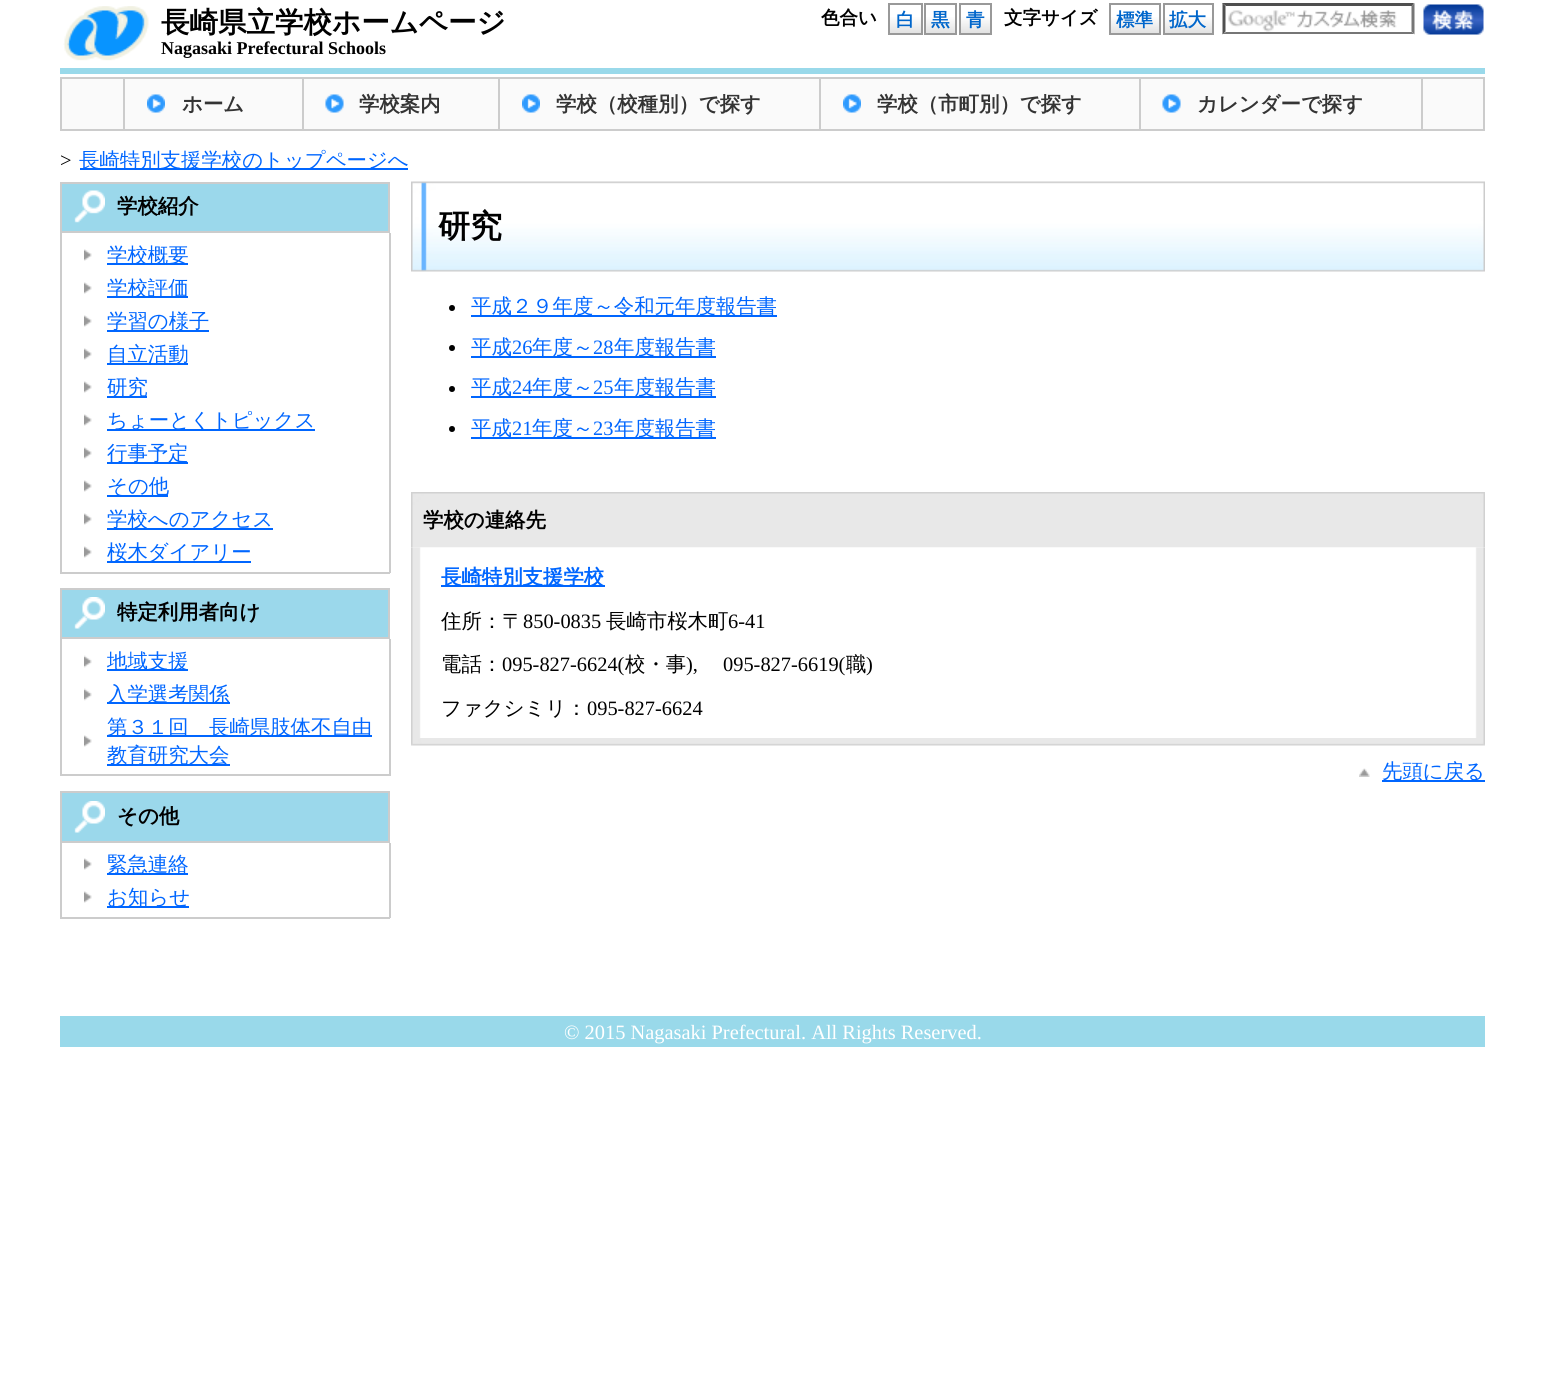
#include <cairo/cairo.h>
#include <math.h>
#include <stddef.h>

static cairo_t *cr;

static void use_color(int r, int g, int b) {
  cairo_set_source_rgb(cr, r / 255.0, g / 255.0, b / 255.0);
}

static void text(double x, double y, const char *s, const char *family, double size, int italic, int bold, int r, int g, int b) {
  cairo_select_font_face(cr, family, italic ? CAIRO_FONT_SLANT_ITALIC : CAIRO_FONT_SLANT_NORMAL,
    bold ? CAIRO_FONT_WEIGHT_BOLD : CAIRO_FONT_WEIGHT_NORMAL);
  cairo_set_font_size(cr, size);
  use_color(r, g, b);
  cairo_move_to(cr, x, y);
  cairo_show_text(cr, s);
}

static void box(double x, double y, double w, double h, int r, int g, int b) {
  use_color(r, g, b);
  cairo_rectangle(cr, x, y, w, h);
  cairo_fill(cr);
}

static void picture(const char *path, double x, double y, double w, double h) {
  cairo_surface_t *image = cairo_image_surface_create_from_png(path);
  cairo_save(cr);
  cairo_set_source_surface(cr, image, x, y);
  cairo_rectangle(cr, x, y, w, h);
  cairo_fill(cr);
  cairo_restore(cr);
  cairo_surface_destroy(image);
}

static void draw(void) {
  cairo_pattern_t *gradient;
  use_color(255, 255, 255);
  cairo_paint(cr);
  box(60, 68, 1425, 6, 153, 217, 234);
  picture("img_01.png", 63, 6, 86, 55);
  gradient = cairo_pattern_create_linear(905, 4.5, 905, 33);
  cairo_pattern_add_color_stop_rgba(gradient, 0.4, 1, 1, 1, 1);
  cairo_pattern_add_color_stop_rgba(gradient, 1, 0.886, 0.886, 0.886, 1);
  cairo_set_source(cr, gradient);
  cairo_pattern_destroy(gradient);
  cairo_rectangle(cr, 890, 17, 31, 16);
  cairo_fill(cr);
  cairo_rectangle(cr, 889, 4, 33, 30);
  use_color(153, 153, 153);
  cairo_stroke(cr);
  gradient = cairo_pattern_create_linear(941, 4.5, 941, 33);
  cairo_pattern_add_color_stop_rgba(gradient, 0.4, 1, 1, 1, 1);
  cairo_pattern_add_color_stop_rgba(gradient, 1, 0.886, 0.886, 0.886, 1);
  cairo_set_source(cr, gradient);
  cairo_pattern_destroy(gradient);
  cairo_rectangle(cr, 926, 17, 29, 16);
  cairo_fill(cr);
  cairo_rectangle(cr, 925, 4, 31, 30);
  use_color(153, 153, 153);
  cairo_stroke(cr);
  gradient = cairo_pattern_create_linear(975, 4.5, 975, 33);
  cairo_pattern_add_color_stop_rgba(gradient, 0.4, 1, 1, 1, 1);
  cairo_pattern_add_color_stop_rgba(gradient, 1, 0.886, 0.886, 0.886, 1);
  cairo_set_source(cr, gradient);
  cairo_pattern_destroy(gradient);
  cairo_rectangle(cr, 961, 17, 29, 16);
  cairo_fill(cr);
  cairo_rectangle(cr, 960, 4, 31, 30);
  use_color(153, 153, 153);
  cairo_stroke(cr);
  gradient = cairo_pattern_create_linear(1135, 4.5, 1135, 33);
  cairo_pattern_add_color_stop_rgba(gradient, 0.4, 1, 1, 1, 1);
  cairo_pattern_add_color_stop_rgba(gradient, 1, 0.886, 0.886, 0.886, 1);
  cairo_set_source(cr, gradient);
  cairo_pattern_destroy(gradient);
  cairo_rectangle(cr, 1111, 17, 48, 16);
  cairo_fill(cr);
  cairo_rectangle(cr, 1110, 4, 50, 30);
  use_color(153, 153, 153);
  cairo_stroke(cr);
  gradient = cairo_pattern_create_linear(1188, 4.5, 1188, 33);
  cairo_pattern_add_color_stop_rgba(gradient, 0.4, 1, 1, 1, 1);
  cairo_pattern_add_color_stop_rgba(gradient, 1, 0.886, 0.886, 0.886, 1);
  cairo_set_source(cr, gradient);
  cairo_pattern_destroy(gradient);
  cairo_rectangle(cr, 1165, 17, 47, 16);
  cairo_fill(cr);
  cairo_rectangle(cr, 1164, 4, 49, 30);
  use_color(153, 153, 153);
  cairo_stroke(cr);
  picture("img_02.png", 1228, 10, 169, 22);
  use_color(79, 79, 79);
  cairo_new_path(cr);
  cairo_move_to(cr, 1222, 3);
  cairo_line_to(cr, 1414, 3);
  cairo_line_to(cr, 1412, 6);
  cairo_line_to(cr, 1226, 6);
  cairo_close_path(cr);
  cairo_fill(cr);
  use_color(118, 118, 118);
  cairo_new_path(cr);
  cairo_move_to(cr, 1414.5, 3);
  cairo_line_to(cr, 1414.5, 34.5);
  cairo_line_to(cr, 1411.5, 31.5);
  cairo_line_to(cr, 1411.5, 6);
  cairo_close_path(cr);
  cairo_fill(cr);
  cairo_new_path(cr);
  cairo_move_to(cr, 1414, 34);
  cairo_line_to(cr, 1222, 34);
  cairo_line_to(cr, 1226, 32);
  cairo_line_to(cr, 1412, 32);
  cairo_close_path(cr);
  cairo_fill(cr);
  use_color(79, 79, 79);
  cairo_new_path(cr);
  cairo_move_to(cr, 1222.5, 34.5);
  cairo_line_to(cr, 1222.5, 3);
  cairo_line_to(cr, 1225.5, 6);
  cairo_line_to(cr, 1225.5, 31.5);
  cairo_close_path(cr);
  cairo_fill(cr);
  picture("img_03.png", 1423, 4, 61, 31);
  use_color(250, 250, 250);
  cairo_rectangle(cr, 61, 78, 1423, 52);
  cairo_fill_preserve(cr);
  use_color(204, 204, 204);
  cairo_stroke(cr);
  picture("img_04.png", 147, 94, 18, 19);
  box(302, 78, 2, 51, 204, 204, 204);
  box(123, 78, 2, 51, 204, 204, 204);
  picture("img_05.png", 325, 94, 19, 19);
  box(498, 78, 2, 51, 204, 204, 204);
  picture("img_06.png", 522, 94, 18, 19);
  box(819, 78, 2, 51, 204, 204, 204);
  picture("img_04.png", 843, 94, 18, 19);
  box(1139, 78, 2, 51, 204, 204, 204);
  picture("img_07.png", 1162, 94, 19, 19);
  box(1421, 78, 2, 51, 204, 204, 204);
  box(80, 168, 328, 2, 0, 102, 255);
  use_color(155, 216, 235);
  cairo_rectangle(cr, 61, 183, 328, 49);
  cairo_fill_preserve(cr);
  use_color(204, 204, 204);
  cairo_stroke(cr);
  picture("img_08.png", 74, 190, 31, 33);
  box(389, 233, 2, 340, 204, 204, 204);
  box(60, 572, 330, 2, 204, 204, 204);
  box(60, 233, 2, 340, 204, 204, 204);
  picture("img_09.png", 84, 249, 8, 12);
  box(107, 263, 81, 2, 0, 102, 255);
  picture("img_09.png", 84, 282, 8, 12);
  box(107, 296, 81, 2, 0, 102, 255);
  picture("img_09.png", 84, 315, 8, 12);
  box(107, 330, 102, 2, 0, 102, 255);
  picture("img_09.png", 84, 348, 8, 12);
  box(107, 363, 81, 2, 0, 102, 255);
  picture("img_09.png", 84, 381, 8, 12);
  box(107, 396, 40, 2, 0, 102, 255);
  picture("img_09.png", 84, 414, 8, 12);
  box(107, 429, 208, 2, 0, 102, 255);
  picture("img_09.png", 84, 447, 8, 12);
  box(107, 462, 81, 2, 0, 102, 255);
  picture("img_09.png", 84, 480, 8, 12);
  box(107, 495, 61, 2, 0, 102, 255);
  picture("img_09.png", 84, 513, 8, 12);
  box(107, 528, 166, 2, 0, 102, 255);
  picture("img_09.png", 84, 546, 8, 12);
  box(107, 561, 144, 2, 0, 102, 255);
  use_color(155, 216, 235);
  cairo_rectangle(cr, 61, 589, 328, 49);
  cairo_fill_preserve(cr);
  use_color(204, 204, 204);
  cairo_stroke(cr);
  picture("img_10.png", 74, 597, 31, 32);
  box(389, 639, 2, 137, 204, 204, 204);
  box(60, 774, 330, 2, 204, 204, 204);
  box(60, 639, 2, 137, 204, 204, 204);
  picture("img_11.png", 84, 655, 8, 13);
  box(107, 669, 81, 2, 0, 102, 255);
  picture("img_11.png", 84, 688, 8, 13);
  box(107, 702, 123, 2, 0, 102, 255);
  picture("img_09.png", 84, 735, 8, 12);
  box(107, 735, 265, 2, 0, 102, 255);
  box(107, 764, 123, 2, 0, 102, 255);
  use_color(155, 216, 235);
  cairo_rectangle(cr, 61, 792, 328, 50);
  cairo_fill_preserve(cr);
  use_color(204, 204, 204);
  cairo_stroke(cr);
  picture("img_10.png", 74, 801, 31, 32);
  box(389, 843, 2, 75, 204, 204, 204);
  box(60, 917, 330, 2, 204, 204, 204);
  box(60, 843, 2, 75, 204, 204, 204);
  picture("img_09.png", 84, 858, 8, 12);
  box(107, 873, 81, 2, 0, 102, 255);
  picture("img_09.png", 84, 891, 8, 12);
  box(107, 906, 82, 2, 0, 102, 255);
  picture("img_12.png", 411, 181, 1074, 91);
  use_color(0, 0, 0);
  cairo_arc(cr, 452, 308, 3, 0, 2 * M_PI);
  cairo_fill(cr);
  box(471, 315, 306, 2, 0, 102, 255);
  use_color(0, 0, 0);
  cairo_arc(cr, 452, 348, 3, 0, 2 * M_PI);
  cairo_fill(cr);
  box(471, 356, 245, 2, 0, 102, 255);
  use_color(0, 0, 0);
  cairo_arc(cr, 452, 389, 3, 0, 2 * M_PI);
  cairo_fill(cr);
  box(471, 396, 245, 2, 0, 102, 255);
  use_color(0, 0, 0);
  cairo_arc(cr, 452, 429, 3, 0, 2 * M_PI);
  cairo_fill(cr);
  box(471, 437, 245, 2, 0, 102, 255);
  picture("img_13.png", 411, 492, 1074, 56);
  picture("img_14.png", 411, 547, 1074, 191);
  box(441, 585, 164, 2, 0, 102, 255);
  picture("img_15.png", 411, 738, 1074, 8);
  picture("img_16.png", 1359, 768, 11, 9);
  box(1382, 780, 103, 2, 0, 102, 255);
  box(60, 1016, 1425, 31, 153, 217, 234);
  text(161, 32, "長崎県立学校ホームページ", "WenQuanYi Zen Hei", 28.5, 0, 1, 0, 0, 0);
  text(161, 54, "Nagasaki Prefectural Schools", "Liberation Serif", 18, 0, 1, 0, 0, 0);
  text(821, 24, "色合い", "WenQuanYi Zen Hei", 18.5, 0, 1, 0, 0, 0);
  text(896, 26, "白", "WenQuanYi Zen Hei", 18.5, 0, 1, 0, 102, 203);
  text(931, 26, "黒", "WenQuanYi Zen Hei", 18.5, 0, 1, 0, 102, 203);
  text(966, 26, "青", "WenQuanYi Zen Hei", 18.5, 0, 1, 0, 102, 203);
  text(1004, 24, "文字サイズ", "WenQuanYi Zen Hei", 18.5, 0, 1, 0, 0, 0);
  text(1116, 26, "標準", "WenQuanYi Zen Hei", 18.5, 0, 1, 0, 102, 203);
  text(1169, 26, "拡大", "WenQuanYi Zen Hei", 18.5, 0, 1, 0, 102, 203);
  text(182, 111, "ホーム", "WenQuanYi Zen Hei", 20.4, 0, 1, 52, 52, 52);
  text(359, 111, "学校案内", "WenQuanYi Zen Hei", 20.4, 0, 1, 52, 52, 52);
  text(556, 111, "学校（校種別）で探す", "WenQuanYi Zen Hei", 20.4, 0, 1, 52, 52, 52);
  text(877, 111, "学校（市町別）で探す", "WenQuanYi Zen Hei", 20.4, 0, 1, 52, 52, 52);
  text(1197, 111, "カレンダーで探す", "WenQuanYi Zen Hei", 20.4, 0, 1, 52, 52, 52);
  text(60, 167, ">", "Liberation Serif", 20.4, 0, 0, 0, 0, 0);
  text(79, 167, "長崎特別支援学校のトップページへ", "WenQuanYi Zen Hei Medium", 20.4, 0, 0, 0, 102, 255);
  text(117, 213, "学校紹介", "WenQuanYi Zen Hei", 20.4, 0, 1, 0, 0, 0);
  text(107, 262, "学校概要", "WenQuanYi Zen Hei Medium", 20.4, 0, 0, 0, 102, 255);
  text(107, 295, "学校評価", "WenQuanYi Zen Hei Medium", 20.4, 0, 0, 0, 102, 255);
  text(107, 328, "学習の様子", "WenQuanYi Zen Hei Medium", 20.4, 0, 0, 0, 102, 255);
  text(107, 361, "自立活動", "WenQuanYi Zen Hei Medium", 20.4, 0, 0, 0, 102, 255);
  text(107, 394, "研究", "WenQuanYi Zen Hei Medium", 20.4, 0, 0, 0, 102, 255);
  text(107, 427, "ちょーとくトピックス", "WenQuanYi Zen Hei Medium", 20.4, 0, 0, 0, 102, 255);
  text(107, 460, "行事予定", "WenQuanYi Zen Hei Medium", 20.4, 0, 0, 0, 102, 255);
  text(107, 493, "その他", "WenQuanYi Zen Hei Medium", 20.4, 0, 0, 0, 102, 255);
  text(107, 526, "学校へのアクセス", "WenQuanYi Zen Hei Medium", 20.4, 0, 0, 0, 102, 255);
  text(107, 559, "桜木ダイアリー", "WenQuanYi Zen Hei Medium", 20.4, 0, 0, 0, 102, 255);
  text(117, 619, "特定利用者向け", "WenQuanYi Zen Hei", 20.4, 0, 1, 0, 0, 0);
  text(107, 668, "地域支援", "WenQuanYi Zen Hei Medium", 20.4, 0, 0, 0, 102, 255);
  text(107, 701, "入学選考関係", "WenQuanYi Zen Hei Medium", 20.4, 0, 0, 0, 102, 255);
  text(107, 734, "第３１回　長崎県肢体不自由", "WenQuanYi Zen Hei Medium", 20.4, 0, 0, 0, 102, 255);
  text(107, 762, "教育研究大会", "WenQuanYi Zen Hei Medium", 20.4, 0, 0, 0, 102, 255);
  text(117, 823, "その他", "WenQuanYi Zen Hei", 20.4, 0, 1, 0, 0, 0);
  text(107, 871, "緊急連絡", "WenQuanYi Zen Hei Medium", 20.4, 0, 0, 0, 102, 255);
  text(107, 904, "お知らせ", "WenQuanYi Zen Hei Medium", 20.4, 0, 0, 0, 102, 255);
  text(438, 237, "研究", "WenQuanYi Zen Hei", 32, 0, 1, 0, 0, 0);
  text(471, 313, "平成２９年度～令和元年度報告書", "WenQuanYi Zen Hei Medium", 20.4, 0, 0, 0, 102, 255);
  text(471, 354, "平成", "WenQuanYi Zen Hei Medium", 20.4, 0, 0, 0, 102, 255);
  text(512, 354, "26", "Liberation Serif", 20.4, 0, 0, 0, 102, 255);
  text(532, 354, "年度～", "WenQuanYi Zen Hei Medium", 20.4, 0, 0, 0, 102, 255);
  text(593, 354, "28", "Liberation Serif", 20.4, 0, 0, 0, 102, 255);
  text(614, 354, "年度報告書", "WenQuanYi Zen Hei Medium", 20.4, 0, 0, 0, 102, 255);
  text(471, 394, "平成", "WenQuanYi Zen Hei Medium", 20.4, 0, 0, 0, 102, 255);
  text(512, 394, "24", "Liberation Serif", 20.4, 0, 0, 0, 102, 255);
  text(532, 394, "年度～", "WenQuanYi Zen Hei Medium", 20.4, 0, 0, 0, 102, 255);
  text(593, 394, "25", "Liberation Serif", 20.4, 0, 0, 0, 102, 255);
  text(614, 394, "年度報告書", "WenQuanYi Zen Hei Medium", 20.4, 0, 0, 0, 102, 255);
  text(471, 435, "平成", "WenQuanYi Zen Hei Medium", 20.4, 0, 0, 0, 102, 255);
  text(512, 435, "21", "Liberation Serif", 20.4, 0, 0, 0, 102, 255);
  text(532, 435, "年度～", "WenQuanYi Zen Hei Medium", 20.4, 0, 0, 0, 102, 255);
  text(593, 435, "23", "Liberation Serif", 20.4, 0, 0, 0, 102, 255);
  text(614, 435, "年度報告書", "WenQuanYi Zen Hei Medium", 20.4, 0, 0, 0, 102, 255);
  text(423, 527, "学校の連絡先", "WenQuanYi Zen Hei", 20.4, 0, 1, 0, 0, 0);
  text(441, 584, "長崎特別支援学校", "WenQuanYi Zen Hei", 20.4, 0, 1, 0, 102, 255);
  text(441, 628, "住所：〒", "WenQuanYi Zen Hei Medium", 20.4, 0, 0, 0, 0, 0);
  text(523, 628, "850-0835", "Liberation Serif", 20.4, 0, 0, 0, 0, 0);
  text(606, 628, "長崎市桜木町", "WenQuanYi Zen Hei Medium", 20.4, 0, 0, 0, 0, 0);
  text(728, 628, "6-41", "Liberation Serif", 20.4, 0, 0, 0, 0, 0);
  text(441, 671, "電話：", "WenQuanYi Zen Hei Medium", 20.4, 0, 0, 0, 0, 0);
  text(502, 671, "095-827-6624(", "Liberation Serif", 20.4, 0, 0, 0, 0, 0);
  text(625, 671, "校・事", "WenQuanYi Zen Hei Medium", 20.4, 0, 0, 0, 0, 0);
  text(686, 671, "),", "Liberation Serif", 20.4, 0, 0, 0, 0, 0);
  text(723, 671, "095-827-6619(", "Liberation Serif", 20.4, 0, 0, 0, 0, 0);
  text(846, 671, "職", "WenQuanYi Zen Hei Medium", 20.4, 0, 0, 0, 0, 0);
  text(866, 671, ")", "Liberation Serif", 20.4, 0, 0, 0, 0, 0);
  text(441, 715, "ファクシミリ：", "WenQuanYi Zen Hei Medium", 20.4, 0, 0, 0, 0, 0);
  text(587, 715, "095-827-6624", "Liberation Serif", 20.4, 0, 0, 0, 0, 0);
  text(1382, 778, "先頭に戻る", "WenQuanYi Zen Hei Medium", 20.4, 0, 0, 0, 102, 255);
  text(564, 1039, "© 2015 Nagasaki Prefectural. All Rights Reserved.", "Liberation Serif", 20.4, 0, 0, 255, 255, 255);
}

int main(void) {
  cairo_surface_t *surface = cairo_image_surface_create(CAIRO_FORMAT_RGB24, 1544, 1397);
  cr = cairo_create(surface);
  cairo_font_options_t *options = cairo_font_options_create();
  cairo_font_options_set_hint_metrics(options, CAIRO_HINT_METRICS_OFF);
  cairo_font_options_set_hint_style(options, CAIRO_HINT_STYLE_NONE);
  cairo_set_font_options(cr, options);
  cairo_set_miter_limit(cr, 4);
  draw();
  cairo_surface_write_to_png(surface, "out.png");
  cairo_font_options_destroy(options);
  cairo_destroy(cr);
  cairo_surface_destroy(surface);
  return 0;
}
